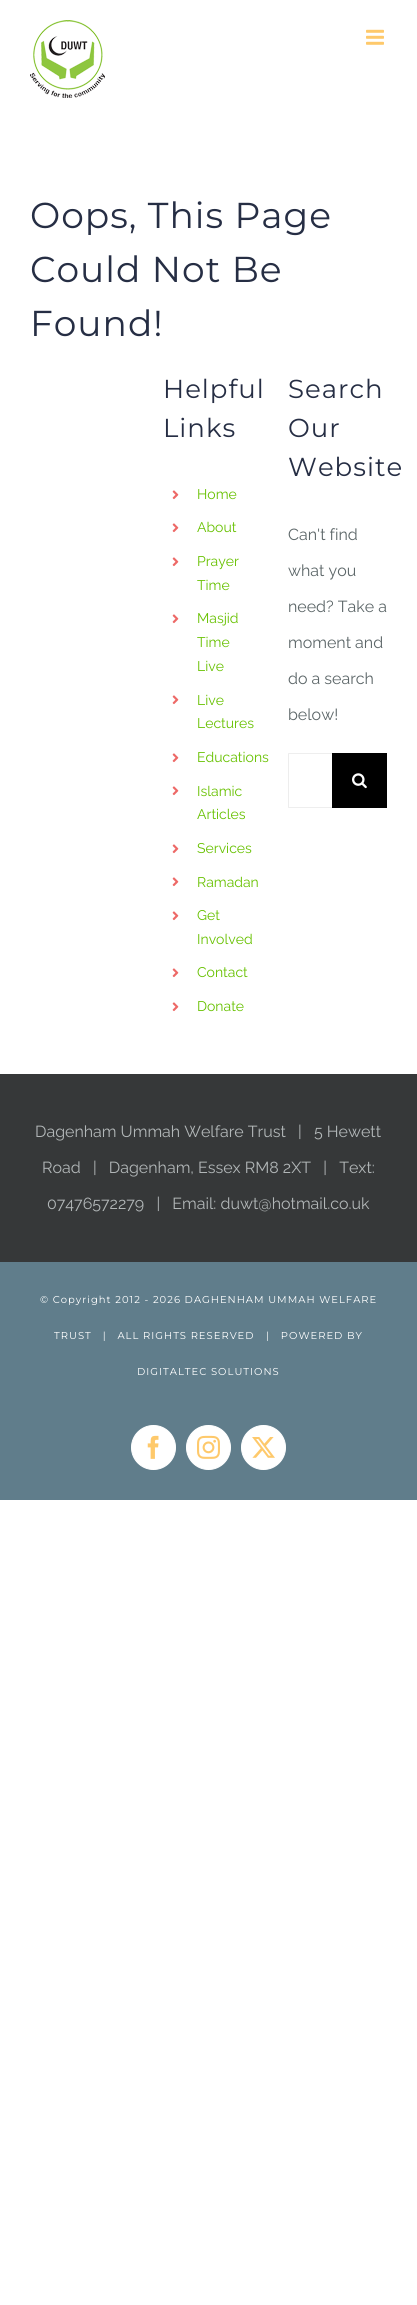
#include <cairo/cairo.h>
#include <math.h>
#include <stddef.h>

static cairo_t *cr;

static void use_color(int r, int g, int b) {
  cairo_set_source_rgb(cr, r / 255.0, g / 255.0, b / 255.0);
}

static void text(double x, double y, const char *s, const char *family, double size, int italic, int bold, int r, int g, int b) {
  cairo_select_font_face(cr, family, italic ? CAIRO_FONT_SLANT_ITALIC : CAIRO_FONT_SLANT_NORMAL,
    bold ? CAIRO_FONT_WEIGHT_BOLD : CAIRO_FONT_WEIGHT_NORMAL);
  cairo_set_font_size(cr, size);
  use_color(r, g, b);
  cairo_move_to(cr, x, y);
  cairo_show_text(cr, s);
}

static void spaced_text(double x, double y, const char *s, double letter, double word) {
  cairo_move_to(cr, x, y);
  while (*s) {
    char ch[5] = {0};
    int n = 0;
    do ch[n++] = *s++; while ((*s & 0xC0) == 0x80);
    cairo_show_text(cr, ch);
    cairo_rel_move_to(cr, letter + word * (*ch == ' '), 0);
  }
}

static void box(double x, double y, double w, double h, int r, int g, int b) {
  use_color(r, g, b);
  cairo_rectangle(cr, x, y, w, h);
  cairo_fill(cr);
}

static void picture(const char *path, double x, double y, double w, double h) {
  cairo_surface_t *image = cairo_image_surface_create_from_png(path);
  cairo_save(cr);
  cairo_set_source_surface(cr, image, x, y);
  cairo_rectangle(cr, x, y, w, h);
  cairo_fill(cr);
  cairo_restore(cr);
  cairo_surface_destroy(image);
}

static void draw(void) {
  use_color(255, 255, 255);
  cairo_paint(cr);
  picture("img_01.png", 30, 20, 75, 78);
  picture("img_02.png", 366, 29, 18, 16);
  picture("img_03.png", 172, 490, 7, 10);
  picture("img_03.png", 172, 523, 7, 10);
  picture("img_03.png", 172, 557, 7, 10);
  picture("img_03.png", 172, 614, 7, 10);
  picture("img_03.png", 172, 695, 7, 10);
  picture("img_03.png", 172, 753, 7, 10);
  picture("img_03.png", 172, 786, 7, 10);
  picture("img_03.png", 172, 844, 7, 10);
  picture("img_03.png", 172, 877, 7, 10);
  picture("img_03.png", 172, 911, 7, 10);
  picture("img_03.png", 172, 968, 7, 10);
  picture("img_03.png", 172, 1002, 7, 10);
  use_color(238, 238, 238);
  cairo_new_path(cr);
  cairo_move_to(cr, 288, 753);
  cairo_line_to(cr, 332, 753);
  cairo_line_to(cr, 332, 754);
  cairo_line_to(cr, 289, 754);
  cairo_close_path(cr);
  cairo_move_to(cr, 332, 808);
  cairo_line_to(cr, 288, 808);
  cairo_line_to(cr, 289, 807);
  cairo_line_to(cr, 332, 807);
  cairo_close_path(cr);
  cairo_fill(cr);
  cairo_set_source_rgba(cr, 0.863, 0.863, 0.863, 0.5);
  cairo_new_path(cr);
  cairo_move_to(cr, 288, 808);
  cairo_line_to(cr, 288, 753);
  cairo_line_to(cr, 289, 754);
  cairo_line_to(cr, 289, 807);
  cairo_close_path(cr);
  cairo_fill(cr);
  box(332, 753, 55, 55, 0, 0, 0);
  picture("img_04.png", 352, 773, 15, 16);
  box(0, 1074, 417, 188, 54, 56, 57);
  box(0, 1262, 417, 238, 96, 125, 139);
  use_color(255, 255, 255);
  cairo_arc(cr, 153.5, 1447.5, 22, 0, 2 * M_PI);
  cairo_fill_preserve(cr);
  cairo_set_line_width(cr, 1);
  cairo_stroke(cr);
  picture("img_05.png", 147, 1435, 12, 24);
  cairo_arc(cr, 208.5, 1447.5, 22, 0, 2 * M_PI);
  cairo_fill_preserve(cr);
  cairo_stroke(cr);
  picture("img_06.png", 197, 1435, 23, 24);
  cairo_arc(cr, 263.5, 1447.5, 22, 0, 2 * M_PI);
  cairo_fill_preserve(cr);
  cairo_stroke(cr);
  picture("img_07.png", 252, 1437, 23, 21);
  cairo_select_font_face(cr, "Montserrat Thin", CAIRO_FONT_SLANT_NORMAL, CAIRO_FONT_WEIGHT_NORMAL);
  cairo_set_font_size(cr, 36);
  use_color(38, 46, 68);
  spaced_text(30, 228, "Oops, This Page", 1, 0);
  spaced_text(30, 282, "Could Not Be", 1, 0);
  spaced_text(30, 336, "Found!", 1, 0);
  cairo_set_font_size(cr, 26);
  spaced_text(163, 398, "Helpful", 1, 0);
  spaced_text(163, 437, "Links", 1, 0);
  text(197, 499, "Home", "Raleway", 14, 0, 0, 103, 193, 0);
  text(197, 532, "About", "Raleway", 14, 0, 0, 103, 193, 0);
  text(197, 566, "Prayer", "Raleway", 14, 0, 0, 103, 193, 0);
  text(197, 590, "Time", "Raleway", 14, 0, 0, 103, 193, 0);
  text(197, 623, "Masjid", "Raleway", 14, 0, 0, 103, 193, 0);
  text(197, 647, "Time", "Raleway", 14, 0, 0, 103, 193, 0);
  text(197, 671, "Live", "Raleway", 14, 0, 0, 103, 193, 0);
  text(197, 705, "Live", "Raleway", 14, 0, 0, 103, 193, 0);
  text(197, 728, "Lectures", "Raleway", 14, 0, 0, 103, 193, 0);
  text(197, 762, "Educations", "Raleway", 14, 0, 0, 103, 193, 0);
  text(197, 796, "Islamic", "Raleway", 14, 0, 0, 103, 193, 0);
  text(197, 819, "Articles", "Raleway", 14, 0, 0, 103, 193, 0);
  text(197, 853, "Services", "Raleway", 14, 0, 0, 103, 193, 0);
  text(197, 887, "Ramadan", "Raleway", 14, 0, 0, 103, 193, 0);
  text(197, 920, "Get", "Raleway", 14, 0, 0, 103, 193, 0);
  text(197, 944, "Involved", "Raleway", 14, 0, 0, 103, 193, 0);
  text(197, 977, "Contact", "Raleway", 14, 0, 0, 103, 193, 0);
  text(197, 1011, "Donate", "Raleway", 14, 0, 0, 103, 193, 0);
  cairo_select_font_face(cr, "Montserrat Thin", CAIRO_FONT_SLANT_NORMAL, CAIRO_FONT_WEIGHT_NORMAL);
  cairo_set_font_size(cr, 26);
  use_color(38, 46, 68);
  spaced_text(288, 398, "Search", 1, 0);
  spaced_text(288, 437, "Our", 1, 0);
  spaced_text(288, 476, "Website", 1, 0);
  text(288, 540, "Can't find", "Raleway", 16, 0, 0, 92, 102, 104);
  text(288, 576, "what you", "Raleway", 16, 0, 0, 92, 102, 104);
  text(288, 612, "need? Take a", "Raleway", 16, 0, 0, 92, 102, 104);
  text(288, 648, "moment and", "Raleway", 16, 0, 0, 92, 102, 104);
  text(288, 684, "do a search", "Raleway", 16, 0, 0, 92, 102, 104);
  text(288, 720, "below!", "Raleway", 16, 0, 0, 92, 102, 104);
  text(35, 1137, "Dagenham Ummah Welfare Trust   |   5 Hewett", "Raleway", 16, 0, 0, 178, 183, 184);
  text(42, 1173, "Road   |   Dagenham, Essex RM8 2XT   |   Text:", "Raleway", 16, 0, 0, 178, 183, 184);
  text(47, 1209, "07476572279   |   Email: duwt@hotmail.co.uk", "Raleway", 16, 0, 0, 178, 183, 184);
  cairo_select_font_face(cr, "Montserrat Thin", CAIRO_FONT_SLANT_NORMAL, CAIRO_FONT_WEIGHT_NORMAL);
  cairo_set_font_size(cr, 10);
  use_color(255, 255, 255);
  spaced_text(40, 1303, "© Copyright 2012 - 2026 DAGHENHAM UMMAH WELFARE", 1, 0);
  spaced_text(54, 1339, "TRUST   |   ALL RIGHTS RESERVED", 1, 0);
  spaced_text(266, 1339, "|   POWERED BY", 1, 0);
  spaced_text(137, 1375, "DIGITALTEC SOLUTIONS", 1, 0);
}

int main(void) {
  cairo_surface_t *surface = cairo_image_surface_create(CAIRO_FORMAT_RGB24, 417, 2305);
  cr = cairo_create(surface);
  cairo_font_options_t *options = cairo_font_options_create();
  cairo_font_options_set_hint_metrics(options, CAIRO_HINT_METRICS_OFF);
  cairo_font_options_set_hint_style(options, CAIRO_HINT_STYLE_NONE);
  cairo_set_font_options(cr, options);
  cairo_set_miter_limit(cr, 4);
  draw();
  cairo_surface_write_to_png(surface, "out.png");
  cairo_font_options_destroy(options);
  cairo_destroy(cr);
  cairo_surface_destroy(surface);
  return 0;
}
